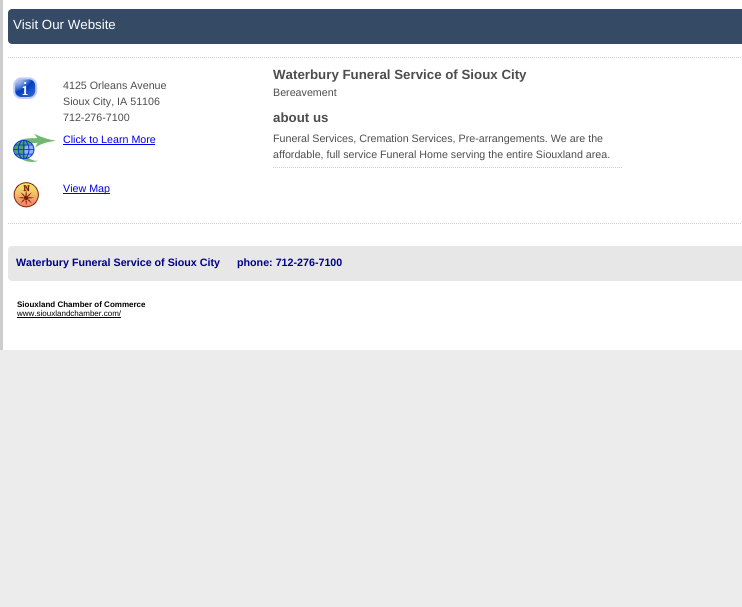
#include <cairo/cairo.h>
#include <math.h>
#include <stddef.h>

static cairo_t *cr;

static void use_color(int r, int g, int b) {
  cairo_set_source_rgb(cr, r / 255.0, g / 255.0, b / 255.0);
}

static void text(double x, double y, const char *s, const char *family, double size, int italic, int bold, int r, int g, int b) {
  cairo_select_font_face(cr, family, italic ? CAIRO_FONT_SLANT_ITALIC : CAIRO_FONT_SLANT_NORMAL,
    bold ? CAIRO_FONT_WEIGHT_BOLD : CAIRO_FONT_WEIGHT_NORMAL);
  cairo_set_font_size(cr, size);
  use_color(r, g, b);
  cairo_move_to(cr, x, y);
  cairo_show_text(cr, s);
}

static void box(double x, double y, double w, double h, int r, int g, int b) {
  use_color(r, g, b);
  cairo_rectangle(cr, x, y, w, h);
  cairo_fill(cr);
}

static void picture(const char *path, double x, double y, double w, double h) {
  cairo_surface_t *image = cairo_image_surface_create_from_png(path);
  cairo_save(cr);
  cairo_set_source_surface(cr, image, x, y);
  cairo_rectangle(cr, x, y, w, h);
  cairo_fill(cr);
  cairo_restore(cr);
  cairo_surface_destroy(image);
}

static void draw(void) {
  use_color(236, 236, 236);
  cairo_paint(cr);
  box(3, 0, 739, 350, 255, 255, 255);
  box(0, 0, 3, 350, 204, 204, 204);
  picture("img_01.png", 8, 9, 734, 35);
  cairo_new_path(cr);
  cairo_move_to(cr, 8, 57.5);
  cairo_line_to(cr, 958, 57.5);
  cairo_set_line_width(cr, 1);
  cairo_set_dash(cr, (double[]){1, 1}, 2, 0);
  cairo_stroke(cr);
  picture("img_02.png", 13, 77, 25, 22);
  picture("img_03.png", 13, 133, 42, 29);
  box(63, 144, 92, 1, 0, 0, 238);
  picture("img_04.png", 13, 182, 26, 26);
  box(63, 193, 47, 1, 0, 0, 238);
  cairo_new_path(cr);
  cairo_move_to(cr, 273, 167.5);
  cairo_line_to(cr, 623, 167.5);
  use_color(204, 204, 204);
  cairo_stroke(cr);
  cairo_new_path(cr);
  cairo_move_to(cr, 8, 223.5);
  cairo_line_to(cr, 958, 223.5);
  cairo_stroke(cr);
  picture("img_05.png", 8, 246, 734, 35);
  box(17, 317, 104, 1, 0, 0, 0);
  text(13, 29, "Visit Our Website", "Liberation Sans", 13.3, 0, 0, 255, 255, 255);
  text(63, 89, "4125 Orleans Avenue", "Liberation Sans", 10.7, 0, 0, 77, 77, 77);
  text(63, 105, "Sioux City, IA 51106", "Liberation Sans", 10.7, 0, 0, 77, 77, 77);
  text(63, 121, "712-276-7100", "Liberation Sans", 10.7, 0, 0, 77, 77, 77);
  text(63, 143, "Click to Learn More", "Liberation Sans", 10.7, 0, 0, 0, 0, 238);
  text(63, 192, "View Map", "Liberation Sans", 10.7, 0, 0, 0, 0, 238);
  text(273, 79, "Waterbury Funeral Service of Sioux City", "Liberation Sans", 13.3, 0, 1, 77, 77, 77);
  text(273, 96, "Bereavement", "Liberation Sans", 10.7, 0, 0, 77, 77, 77);
  text(273, 122, "about us", "Liberation Sans", 13.3, 0, 1, 77, 77, 77);
  text(273, 142, "Funeral Services, Cremation Services, Pre-arrangements. We are the", "Liberation Sans", 10.7, 0, 0, 77, 77, 77);
  text(273, 158, "affordable, full service Funeral Home serving the entire Siouxland area.", "Liberation Sans", 10.7, 0, 0, 77, 77, 77);
  text(16, 266, "Waterbury Funeral Service of Sioux City", "Liberation Sans", 10.7, 0, 1, 0, 0, 139);
  text(237, 266, "phone: 712-276-7100", "Liberation Sans", 10.7, 0, 1, 0, 0, 139);
  text(17, 307, "Siouxland Chamber of Commerce", "Liberation Sans", 8, 0, 1, 0, 0, 0);
  text(17, 316, "www.siouxlandchamber.com/", "Liberation Sans", 8, 0, 0, 0, 0, 0);
}

int main(void) {
  cairo_surface_t *surface = cairo_image_surface_create(CAIRO_FORMAT_RGB24, 742, 607);
  cr = cairo_create(surface);
  cairo_font_options_t *options = cairo_font_options_create();
  cairo_font_options_set_hint_metrics(options, CAIRO_HINT_METRICS_OFF);
  cairo_font_options_set_hint_style(options, CAIRO_HINT_STYLE_NONE);
  cairo_set_font_options(cr, options);
  cairo_set_miter_limit(cr, 4);
  draw();
  cairo_surface_write_to_png(surface, "out.png");
  cairo_font_options_destroy(options);
  cairo_destroy(cr);
  cairo_surface_destroy(surface);
  return 0;
}
